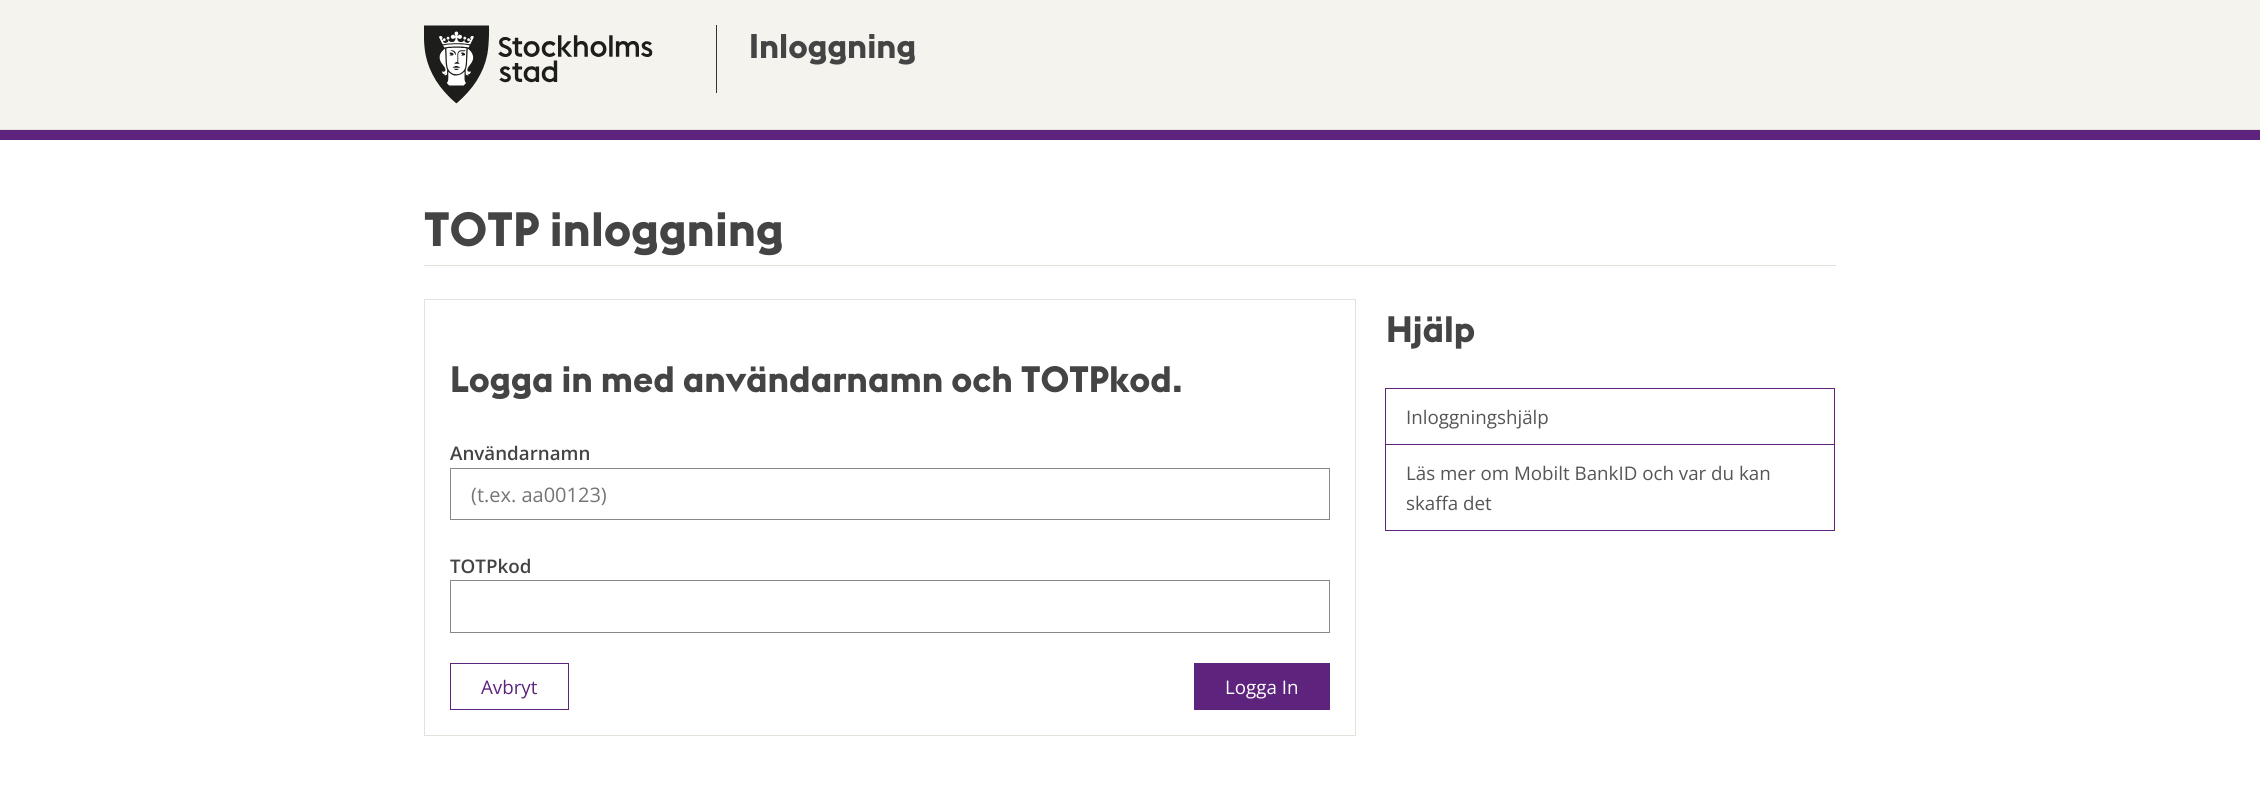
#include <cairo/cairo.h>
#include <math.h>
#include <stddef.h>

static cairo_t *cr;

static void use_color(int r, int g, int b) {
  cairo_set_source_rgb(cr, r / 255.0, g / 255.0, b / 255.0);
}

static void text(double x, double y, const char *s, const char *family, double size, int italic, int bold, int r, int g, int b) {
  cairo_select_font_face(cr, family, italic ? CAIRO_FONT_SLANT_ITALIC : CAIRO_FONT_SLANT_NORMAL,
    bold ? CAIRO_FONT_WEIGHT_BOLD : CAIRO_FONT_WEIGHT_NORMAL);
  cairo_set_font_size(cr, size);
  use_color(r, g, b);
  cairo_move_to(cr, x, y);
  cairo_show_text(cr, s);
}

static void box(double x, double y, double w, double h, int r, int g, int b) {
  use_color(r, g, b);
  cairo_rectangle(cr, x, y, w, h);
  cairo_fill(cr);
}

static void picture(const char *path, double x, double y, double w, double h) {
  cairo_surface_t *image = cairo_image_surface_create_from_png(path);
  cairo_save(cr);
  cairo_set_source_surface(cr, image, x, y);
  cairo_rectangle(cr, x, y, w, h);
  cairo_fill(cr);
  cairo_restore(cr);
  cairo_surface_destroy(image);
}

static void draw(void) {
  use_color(255, 255, 255);
  cairo_paint(cr);
  box(0, 0, 2260, 129, 245, 243, 238);
  box(0, 129, 2260, 1, 229, 226, 219);
  picture("img_01.png", 424, 25, 229, 79);
  box(716, 25, 1, 68, 51, 51, 51);
  box(0, 130, 2260, 10, 93, 35, 125);
  box(424, 265, 1412, 1, 229, 226, 219);
  cairo_rectangle(cr, 424.5, 299.5, 931, 436);
  cairo_set_line_width(cr, 1);
  cairo_stroke(cr);
  cairo_rectangle(cr, 450.5, 468.5, 879, 51);
  use_color(136, 136, 136);
  cairo_stroke(cr);
  cairo_rectangle(cr, 450.5, 580.5, 879, 52);
  cairo_stroke(cr);
  cairo_rectangle(cr, 450.5, 663.5, 118, 46);
  use_color(93, 35, 125);
  cairo_stroke(cr);
  box(1194, 663, 136, 47, 93, 35, 125);
  cairo_rectangle(cr, 1385.5, 388.5, 449, 56);
  cairo_stroke(cr);
  cairo_rectangle(cr, 1385.5, 444.5, 449, 86);
  cairo_stroke(cr);
  text(749, 58, "Inloggning", "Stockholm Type", 33.75, 0, 1, 68, 68, 68);
  text(424, 246, "TOTP inloggning", "Stockholm Type", 47.5, 0, 1, 68, 68, 68);
  text(450, 392, "Logga in med användarnamn och TOTPkod.", "Stockholm Type", 36.25, 0, 1, 68, 68, 68);
  text(450, 460, "Användarnamn", "Open Sans SemiBold", 18.75, 0, 0, 68, 68, 68);
  text(471, 502, "(t.ex. aa00123)", "Open Sans", 20, 0, 0, 117, 117, 117);
  text(450, 573, "TOTPkod", "Open Sans SemiBold", 18.75, 0, 0, 68, 68, 68);
  text(481, 694, "Avbryt", "Open Sans", 18.75, 0, 0, 93, 35, 125);
  text(1225, 694, "Logga In", "Open Sans", 18.75, 0, 0, 255, 255, 255);
  text(1386, 342, "Hjälp", "Stockholm Type", 36.25, 0, 1, 68, 68, 68);
  text(1406, 424, "Inloggningshjälp", "Open Sans", 18.75, 0, 0, 85, 85, 85);
  text(1406, 480, "Läs mer om Mobilt BankID och var du kan", "Open Sans", 18.75, 0, 0, 85, 85, 85);
  text(1406, 510, "skaffa det", "Open Sans", 18.75, 0, 0, 85, 85, 85);
}

int main(void) {
  cairo_surface_t *surface = cairo_image_surface_create(CAIRO_FORMAT_RGB24, 2260, 793);
  cr = cairo_create(surface);
  cairo_font_options_t *options = cairo_font_options_create();
  cairo_font_options_set_hint_metrics(options, CAIRO_HINT_METRICS_OFF);
  cairo_font_options_set_hint_style(options, CAIRO_HINT_STYLE_NONE);
  cairo_set_font_options(cr, options);
  cairo_set_miter_limit(cr, 4);
  draw();
  cairo_surface_write_to_png(surface, "out.png");
  cairo_font_options_destroy(options);
  cairo_destroy(cr);
  cairo_surface_destroy(surface);
  return 0;
}
